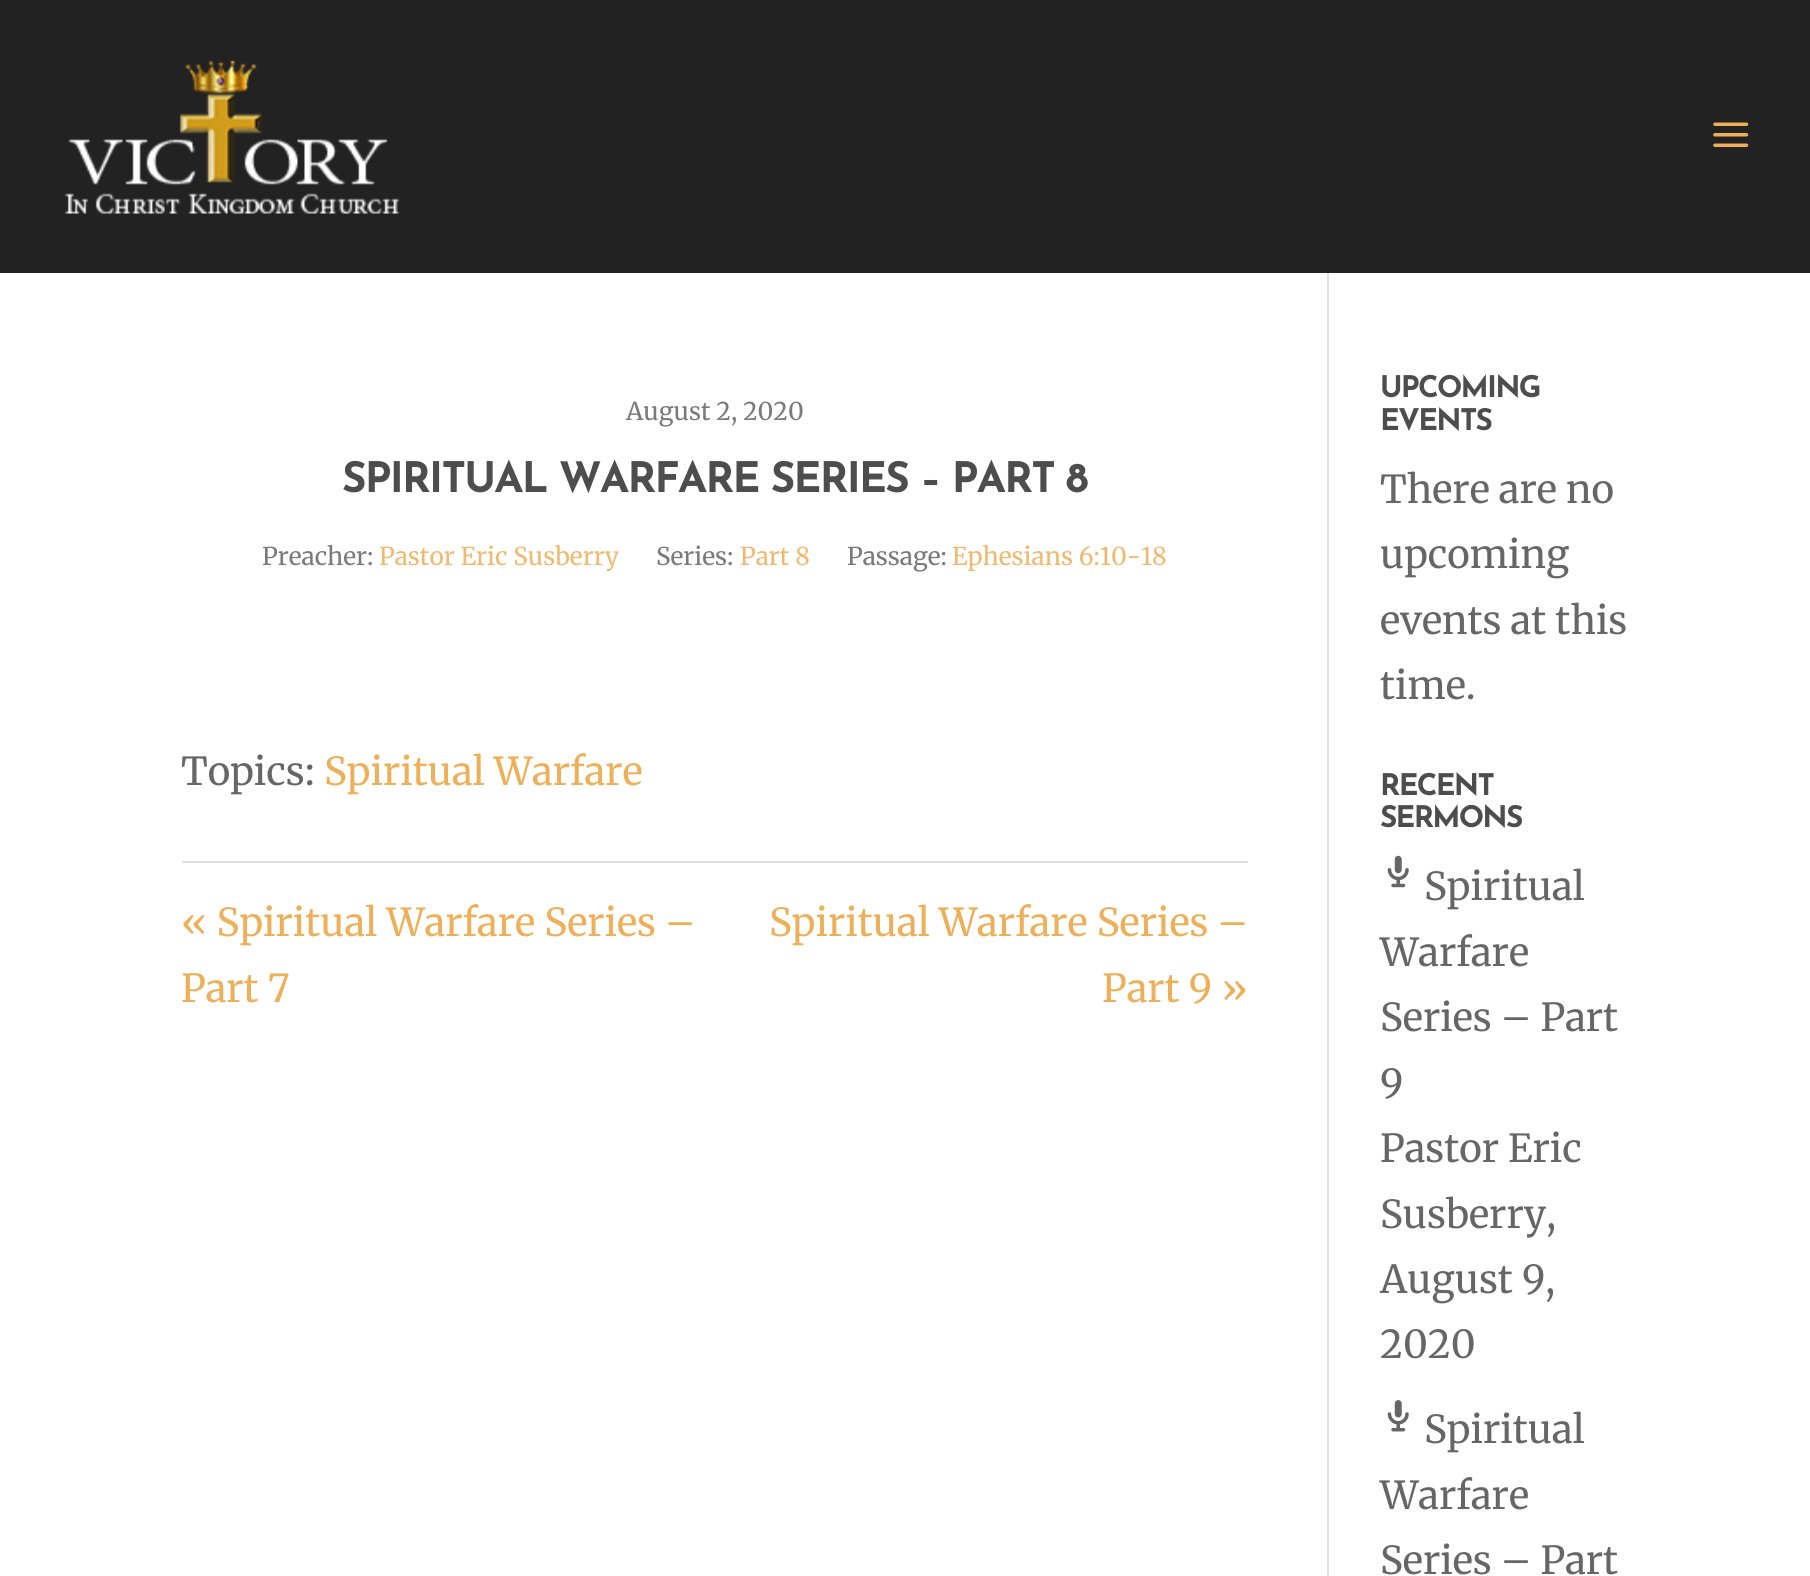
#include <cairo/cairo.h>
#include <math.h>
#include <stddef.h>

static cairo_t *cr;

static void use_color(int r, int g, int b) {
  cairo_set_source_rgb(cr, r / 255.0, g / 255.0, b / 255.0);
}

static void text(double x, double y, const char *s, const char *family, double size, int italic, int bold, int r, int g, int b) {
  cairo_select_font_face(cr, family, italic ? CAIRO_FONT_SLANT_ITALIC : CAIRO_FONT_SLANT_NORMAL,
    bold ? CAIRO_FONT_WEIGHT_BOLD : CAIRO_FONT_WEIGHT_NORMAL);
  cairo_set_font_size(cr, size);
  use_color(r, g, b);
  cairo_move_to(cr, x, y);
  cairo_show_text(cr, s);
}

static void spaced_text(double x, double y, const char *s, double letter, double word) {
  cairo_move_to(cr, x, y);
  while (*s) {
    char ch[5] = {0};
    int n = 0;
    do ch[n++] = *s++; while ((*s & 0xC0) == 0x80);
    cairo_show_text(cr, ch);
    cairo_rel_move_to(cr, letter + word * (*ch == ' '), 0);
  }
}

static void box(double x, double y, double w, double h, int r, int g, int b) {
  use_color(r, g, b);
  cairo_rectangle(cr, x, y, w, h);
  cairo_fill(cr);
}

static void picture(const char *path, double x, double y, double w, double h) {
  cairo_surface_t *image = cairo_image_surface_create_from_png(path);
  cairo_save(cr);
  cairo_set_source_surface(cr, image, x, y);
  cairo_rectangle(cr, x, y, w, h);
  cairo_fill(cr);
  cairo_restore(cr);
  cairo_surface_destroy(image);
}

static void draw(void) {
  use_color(255, 255, 255);
  cairo_paint(cr);
  box(0, 0, 1810, 273, 34, 34, 34);
  picture("img_01.png", 64, 60, 335, 154);
  picture("img_02.png", 1713, 122, 36, 25);
  box(1327, 273, 2, 1303, 226, 226, 226);
  box(182, 861, 1066, 2, 221, 221, 221);
  picture("img_03.png", 1387, 855, 22, 33);
  picture("img_04.png", 1387, 1400, 22, 32);
  text(626, 420, "August 2, 2020", "Merriweather", 24.5, 0, 0, 122, 122, 122);
  cairo_select_font_face(cr, "Josefin Sans", CAIRO_FONT_SLANT_NORMAL, CAIRO_FONT_WEIGHT_BOLD);
  cairo_set_font_size(cr, 42);
  use_color(77, 77, 77);
  spaced_text(342, 492, "SPIRITUAL WARFARE SERIES – PART 8", -1.75, 0);
  text(262, 565, "Preacher:", "Merriweather", 24.5, 0, 0, 122, 122, 122);
  text(379, 565, "Pastor Eric Susberry", "Merriweather", 24.5, 0, 0, 239, 186, 111);
  text(656, 565, "Series:", "Merriweather", 24.5, 0, 0, 122, 122, 122);
  text(740, 565, "Part 8", "Merriweather", 24.5, 0, 0, 239, 186, 111);
  text(847, 565, "Passage:", "Merriweather", 24.5, 0, 0, 122, 122, 122);
  text(952, 565, "Ephesians 6:10-18", "Merriweather", 24.5, 0, 0, 239, 186, 111);
  text(181, 785, "Topics:", "Merriweather", 38.5, 0, 0, 102, 102, 102);
  text(324, 785, "Spiritual Warfare", "Merriweather", 38.5, 0, 0, 237, 176, 89);
  text(181, 936, "« Spiritual Warfare Series –", "Merriweather", 38.5, 0, 0, 237, 176, 89);
  text(181, 1002, "Part 7", "Merriweather", 38.5, 0, 0, 237, 176, 89);
  text(769, 936, "Spiritual Warfare Series –", "Merriweather", 38.5, 0, 0, 237, 176, 89);
  text(1102, 1002, "Part 9 »", "Merriweather", 38.5, 0, 0, 237, 176, 89);
  cairo_select_font_face(cr, "Josefin Sans", CAIRO_FONT_SLANT_NORMAL, CAIRO_FONT_WEIGHT_BOLD);
  cairo_set_font_size(cr, 29.75);
  use_color(77, 77, 77);
  spaced_text(1380, 397, "UPCOMING", -1.75, 0);
  spaced_text(1380, 430, "EVENTS", -1.75, 0);
  text(1380, 503, "There are no", "Merriweather", 38.5, 0, 0, 102, 102, 102);
  text(1380, 568, "upcoming", "Merriweather", 38.5, 0, 0, 102, 102, 102);
  text(1380, 634, "events at this", "Merriweather", 38.5, 0, 0, 102, 102, 102);
  text(1380, 699, "time.", "Merriweather", 38.5, 0, 0, 102, 102, 102);
  cairo_select_font_face(cr, "Josefin Sans", CAIRO_FONT_SLANT_NORMAL, CAIRO_FONT_WEIGHT_BOLD);
  cairo_set_font_size(cr, 29.75);
  use_color(77, 77, 77);
  spaced_text(1380, 795, "RECENT", -1.75, 0);
  spaced_text(1380, 827, "SERMONS", -1.75, 0);
  text(1424, 900, "Spiritual", "Merriweather", 38.5, 0, 0, 102, 102, 102);
  text(1380, 966, "Warfare", "Merriweather", 38.5, 0, 0, 102, 102, 102);
  text(1380, 1031, "Series – Part", "Merriweather", 38.5, 0, 0, 102, 102, 102);
  text(1380, 1097, "9", "Merriweather", 38.5, 0, 0, 102, 102, 102);
  text(1380, 1162, "Pastor Eric", "Merriweather", 38.5, 0, 0, 102, 102, 102);
  text(1380, 1228, "Susberry,", "Merriweather", 38.5, 0, 0, 102, 102, 102);
  text(1380, 1293, "August 9,", "Merriweather", 38.5, 0, 0, 102, 102, 102);
  text(1380, 1358, "2020", "Merriweather", 38.5, 0, 0, 102, 102, 102);
  text(1424, 1443, "Spiritual", "Merriweather", 38.5, 0, 0, 102, 102, 102);
  text(1380, 1509, "Warfare", "Merriweather", 38.5, 0, 0, 102, 102, 102);
  text(1380, 1574, "Series – Part", "Merriweather", 38.5, 0, 0, 102, 102, 102);
}

int main(void) {
  cairo_surface_t *surface = cairo_image_surface_create(CAIRO_FORMAT_RGB24, 1810, 1576);
  cr = cairo_create(surface);
  cairo_font_options_t *options = cairo_font_options_create();
  cairo_font_options_set_hint_metrics(options, CAIRO_HINT_METRICS_OFF);
  cairo_font_options_set_hint_style(options, CAIRO_HINT_STYLE_NONE);
  cairo_set_font_options(cr, options);
  cairo_set_miter_limit(cr, 4);
  draw();
  cairo_surface_write_to_png(surface, "out.png");
  cairo_font_options_destroy(options);
  cairo_destroy(cr);
  cairo_surface_destroy(surface);
  return 0;
}
